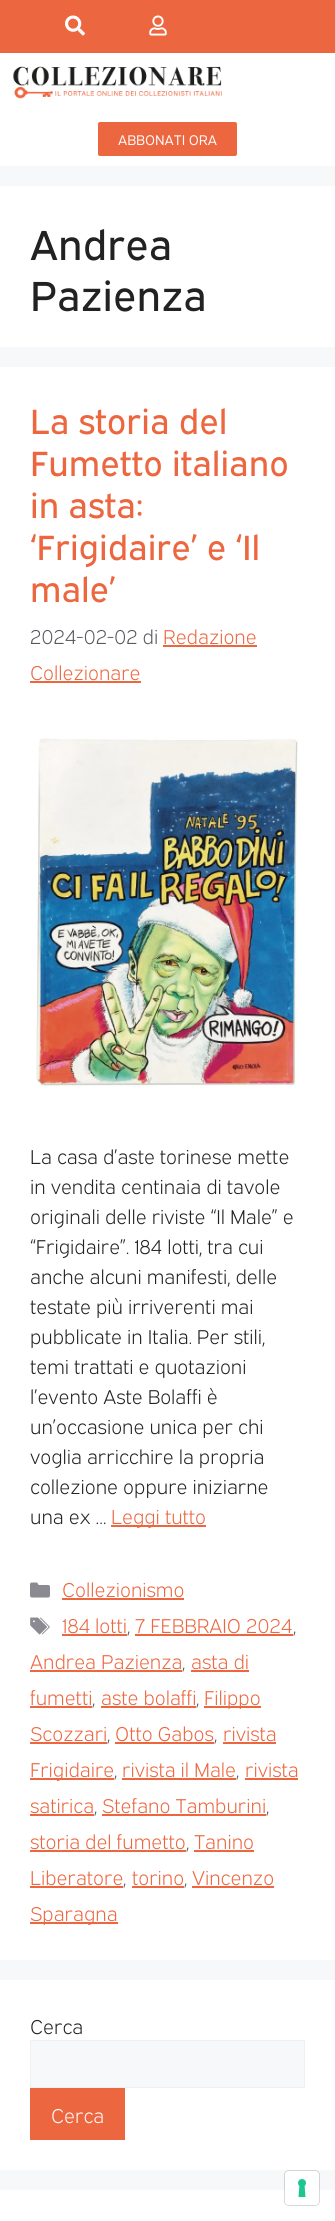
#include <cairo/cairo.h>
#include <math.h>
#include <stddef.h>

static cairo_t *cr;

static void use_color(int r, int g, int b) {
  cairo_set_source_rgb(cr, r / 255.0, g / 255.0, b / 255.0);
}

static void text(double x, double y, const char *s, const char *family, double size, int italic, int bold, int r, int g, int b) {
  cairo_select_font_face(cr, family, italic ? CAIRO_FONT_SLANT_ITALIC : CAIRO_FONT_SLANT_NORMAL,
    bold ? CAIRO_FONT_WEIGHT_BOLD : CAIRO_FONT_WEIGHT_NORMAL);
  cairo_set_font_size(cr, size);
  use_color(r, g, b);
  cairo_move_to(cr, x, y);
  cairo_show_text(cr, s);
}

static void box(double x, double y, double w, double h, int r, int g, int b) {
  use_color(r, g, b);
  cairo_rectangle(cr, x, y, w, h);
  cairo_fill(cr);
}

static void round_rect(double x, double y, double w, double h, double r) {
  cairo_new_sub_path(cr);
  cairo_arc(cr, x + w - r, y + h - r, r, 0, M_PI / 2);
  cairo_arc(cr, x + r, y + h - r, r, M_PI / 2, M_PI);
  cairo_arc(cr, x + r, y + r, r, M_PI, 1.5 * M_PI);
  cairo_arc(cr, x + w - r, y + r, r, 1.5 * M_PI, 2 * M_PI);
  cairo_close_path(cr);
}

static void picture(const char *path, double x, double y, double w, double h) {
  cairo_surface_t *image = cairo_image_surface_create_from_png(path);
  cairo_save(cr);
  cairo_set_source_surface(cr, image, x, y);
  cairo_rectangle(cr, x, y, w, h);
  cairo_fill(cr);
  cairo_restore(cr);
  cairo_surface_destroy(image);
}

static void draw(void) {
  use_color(247, 248, 249);
  cairo_paint(cr);
  box(0, 0, 335, 53, 236, 102, 63);
  picture("img_01.png", 65, 15, 20, 21);
  picture("img_02.png", 149, 15, 18, 21);
  box(0, 53, 335, 113, 255, 255, 255);
  picture("img_03.png", 13, 66, 209, 33);
  use_color(236, 102, 63);
  round_rect(98, 122, 139, 34, 2);
  cairo_fill(cr);
  box(0, 186, 335, 161, 255, 255, 255);
  box(0, 367, 335, 1593, 255, 255, 255);
  box(163, 645, 94, 2, 236, 102, 63);
  box(30, 681, 111, 2, 236, 102, 63);
  picture("img_04.png", 36, 738, 263, 349);
  box(111, 1525, 95, 2, 236, 102, 63);
  picture("img_05.png", 30, 1582, 20, 16);
  box(62, 1598, 122, 2, 236, 102, 63);
  picture("img_06.png", 30, 1617, 20, 18);
  box(62, 1634, 65, 2, 236, 102, 63);
  box(135, 1634, 158, 2, 236, 102, 63);
  box(30, 1670, 152, 2, 236, 102, 63);
  box(191, 1670, 58, 2, 236, 102, 63);
  box(30, 1706, 62, 2, 236, 102, 63);
  box(101, 1706, 95, 2, 236, 102, 63);
  box(204, 1706, 57, 2, 236, 102, 63);
  box(30, 1742, 77, 2, 236, 102, 63);
  box(115, 1742, 99, 2, 236, 102, 63);
  box(223, 1742, 53, 2, 236, 102, 63);
  box(30, 1778, 84, 2, 236, 102, 63);
  box(122, 1778, 114, 2, 236, 102, 63);
  box(245, 1778, 53, 2, 236, 102, 63);
  box(30, 1814, 64, 2, 236, 102, 63);
  box(102, 1814, 164, 2, 236, 102, 63);
  box(30, 1850, 156, 2, 236, 102, 63);
  box(194, 1850, 60, 2, 236, 102, 63);
  box(30, 1886, 93, 2, 236, 102, 63);
  box(132, 1886, 52, 2, 236, 102, 63);
  box(192, 1886, 82, 2, 236, 102, 63);
  box(30, 1922, 88, 2, 236, 102, 63);
  box(0, 1980, 335, 190, 255, 255, 255);
  use_color(247, 248, 249);
  cairo_rectangle(cr, 30.5, 2040.5, 274, 47);
  cairo_fill_preserve(cr);
  use_color(240, 240, 240);
  cairo_set_line_width(cr, 1);
  cairo_stroke(cr);
  box(30, 2088, 95, 52, 236, 102, 63);
  box(0, 2190, 335, 31, 255, 255, 255);
  round_rect(284.5, 2170.5, 35, 35, 4.5);
  cairo_set_source_rgba(cr, 0, 0, 0, 0.15);
  cairo_stroke(cr);
  use_color(255, 255, 255);
  round_rect(285, 2171, 34, 34, 4);
  cairo_fill(cr);
  picture("img_07.png", 298, 2179, 8, 18);
  text(118, 145, "ABBONATI ORA", "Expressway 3", 14, 0, 0, 253, 253, 253);
  text(30, 260, "Andrea", "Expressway", 42, 0, 0, 34, 34, 34);
  text(30, 311, "Pazienza", "Expressway", 42, 0, 0, 34, 34, 34);
  text(30, 434, "La storia del", "Expressway", 35, 0, 0, 236, 102, 63);
  text(30, 476, "Fumetto italiano", "Expressway", 35, 0, 0, 236, 102, 63);
  text(30, 518, "in asta:", "Expressway", 35, 0, 0, 236, 102, 63);
  text(30, 560, "‘Frigidaire’ e ‘Il", "Expressway", 35, 0, 0, 236, 102, 63);
  text(30, 602, "male’", "Expressway", 35, 0, 0, 236, 102, 63);
  text(30, 644, "2024-02-02 di", "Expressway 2", 20, 0, 0, 87, 87, 96);
  text(163, 644, "Redazione", "Expressway 2", 20, 0, 0, 236, 102, 63);
  text(30, 680, "Collezionare", "Expressway 2", 20, 0, 0, 236, 102, 63);
  text(30, 1164, "La casa d’aste torinese mette", "Expressway 2", 20, 0, 0, 34, 34, 34);
  text(30, 1194, "in vendita centinaia di tavole", "Expressway 2", 20, 0, 0, 34, 34, 34);
  text(30, 1224, "originali delle riviste “Il Male” e", "Expressway 2", 20, 0, 0, 34, 34, 34);
  text(30, 1254, "“Frigidaire”. 184 lotti, tra cui", "Expressway 2", 20, 0, 0, 34, 34, 34);
  text(30, 1284, "anche alcuni manifesti, delle", "Expressway 2", 20, 0, 0, 34, 34, 34);
  text(30, 1314, "testate più irriverenti mai", "Expressway 2", 20, 0, 0, 34, 34, 34);
  text(30, 1344, "pubblicate in Italia. Per stili,", "Expressway 2", 20, 0, 0, 34, 34, 34);
  text(30, 1374, "temi trattati e quotazioni", "Expressway 2", 20, 0, 0, 34, 34, 34);
  text(30, 1404, "l’evento Aste Bolaffi è", "Expressway 2", 20, 0, 0, 34, 34, 34);
  text(30, 1434, "un’occasione unica per chi", "Expressway 2", 20, 0, 0, 34, 34, 34);
  text(30, 1464, "voglia arricchire la propria", "Expressway 2", 20, 0, 0, 34, 34, 34);
  text(30, 1494, "collezione oppure iniziarne", "Expressway 2", 20, 0, 0, 34, 34, 34);
  text(30, 1524, "una ex …", "Expressway 2", 20, 0, 0, 34, 34, 34);
  text(111, 1524, "Leggi tutto", "Expressway 2", 20, 0, 0, 236, 102, 63);
  text(62, 1597, "Collezionismo", "Expressway 2", 20, 0, 0, 236, 102, 63);
  text(62, 1633, "184 lotti", "Expressway 2", 20, 0, 0, 236, 102, 63);
  text(127, 1633, ",", "Expressway 2", 20, 0, 0, 87, 87, 96);
  text(135, 1633, "7 FEBBRAIO 2024", "Expressway 2", 20, 0, 0, 236, 102, 63);
  text(293, 1633, ",", "Expressway 2", 20, 0, 0, 87, 87, 96);
  text(30, 1669, "Andrea Pazienza", "Expressway 2", 20, 0, 0, 236, 102, 63);
  text(182, 1669, ",", "Expressway 2", 20, 0, 0, 87, 87, 96);
  text(191, 1669, "asta di", "Expressway 2", 20, 0, 0, 236, 102, 63);
  text(30, 1705, "fumetti", "Expressway 2", 20, 0, 0, 236, 102, 63);
  text(92, 1705, ",", "Expressway 2", 20, 0, 0, 87, 87, 96);
  text(101, 1705, "aste bolaffi", "Expressway 2", 20, 0, 0, 236, 102, 63);
  text(196, 1705, ",", "Expressway 2", 20, 0, 0, 87, 87, 96);
  text(204, 1705, "Filippo", "Expressway 2", 20, 0, 0, 236, 102, 63);
  text(30, 1741, "Scozzari", "Expressway 2", 20, 0, 0, 236, 102, 63);
  text(107, 1741, ",", "Expressway 2", 20, 0, 0, 87, 87, 96);
  text(115, 1741, "Otto Gabos", "Expressway 2", 20, 0, 0, 236, 102, 63);
  text(214, 1741, ",", "Expressway 2", 20, 0, 0, 87, 87, 96);
  text(223, 1741, "rivista", "Expressway 2", 20, 0, 0, 236, 102, 63);
  text(30, 1777, "Frigidaire", "Expressway 2", 20, 0, 0, 236, 102, 63);
  text(114, 1777, ",", "Expressway 2", 20, 0, 0, 87, 87, 96);
  text(122, 1777, "rivista il Male", "Expressway 2", 20, 0, 0, 236, 102, 63);
  text(236, 1777, ",", "Expressway 2", 20, 0, 0, 87, 87, 96);
  text(245, 1777, "rivista", "Expressway 2", 20, 0, 0, 236, 102, 63);
  text(30, 1813, "satirica", "Expressway 2", 20, 0, 0, 236, 102, 63);
  text(94, 1813, ",", "Expressway 2", 20, 0, 0, 87, 87, 96);
  text(102, 1813, "Stefano Tamburini", "Expressway 2", 20, 0, 0, 236, 102, 63);
  text(266, 1813, ",", "Expressway 2", 20, 0, 0, 87, 87, 96);
  text(30, 1849, "storia del fumetto", "Expressway 2", 20, 0, 0, 236, 102, 63);
  text(186, 1849, ",", "Expressway 2", 20, 0, 0, 87, 87, 96);
  text(194, 1849, "Tanino", "Expressway 2", 20, 0, 0, 236, 102, 63);
  text(30, 1885, "Liberatore", "Expressway 2", 20, 0, 0, 236, 102, 63);
  text(123, 1885, ",", "Expressway 2", 20, 0, 0, 87, 87, 96);
  text(132, 1885, "torino", "Expressway 2", 20, 0, 0, 236, 102, 63);
  text(184, 1885, ",", "Expressway 2", 20, 0, 0, 87, 87, 96);
  text(192, 1885, "Vincenzo", "Expressway 2", 20, 0, 0, 236, 102, 63);
  text(30, 1921, "Sparagna", "Expressway 2", 20, 0, 0, 236, 102, 63);
  text(30, 2034, "Cerca", "Expressway 2", 20, 0, 0, 34, 34, 34);
  text(51, 2123, "Cerca", "Expressway 2", 20, 0, 0, 253, 253, 253);
}

int main(void) {
  cairo_surface_t *surface = cairo_image_surface_create(CAIRO_FORMAT_RGB24, 335, 2221);
  cr = cairo_create(surface);
  cairo_font_options_t *options = cairo_font_options_create();
  cairo_font_options_set_hint_metrics(options, CAIRO_HINT_METRICS_OFF);
  cairo_font_options_set_hint_style(options, CAIRO_HINT_STYLE_NONE);
  cairo_set_font_options(cr, options);
  cairo_set_miter_limit(cr, 4);
  draw();
  cairo_surface_write_to_png(surface, "out.png");
  cairo_font_options_destroy(options);
  cairo_destroy(cr);
  cairo_surface_destroy(surface);
  return 0;
}
